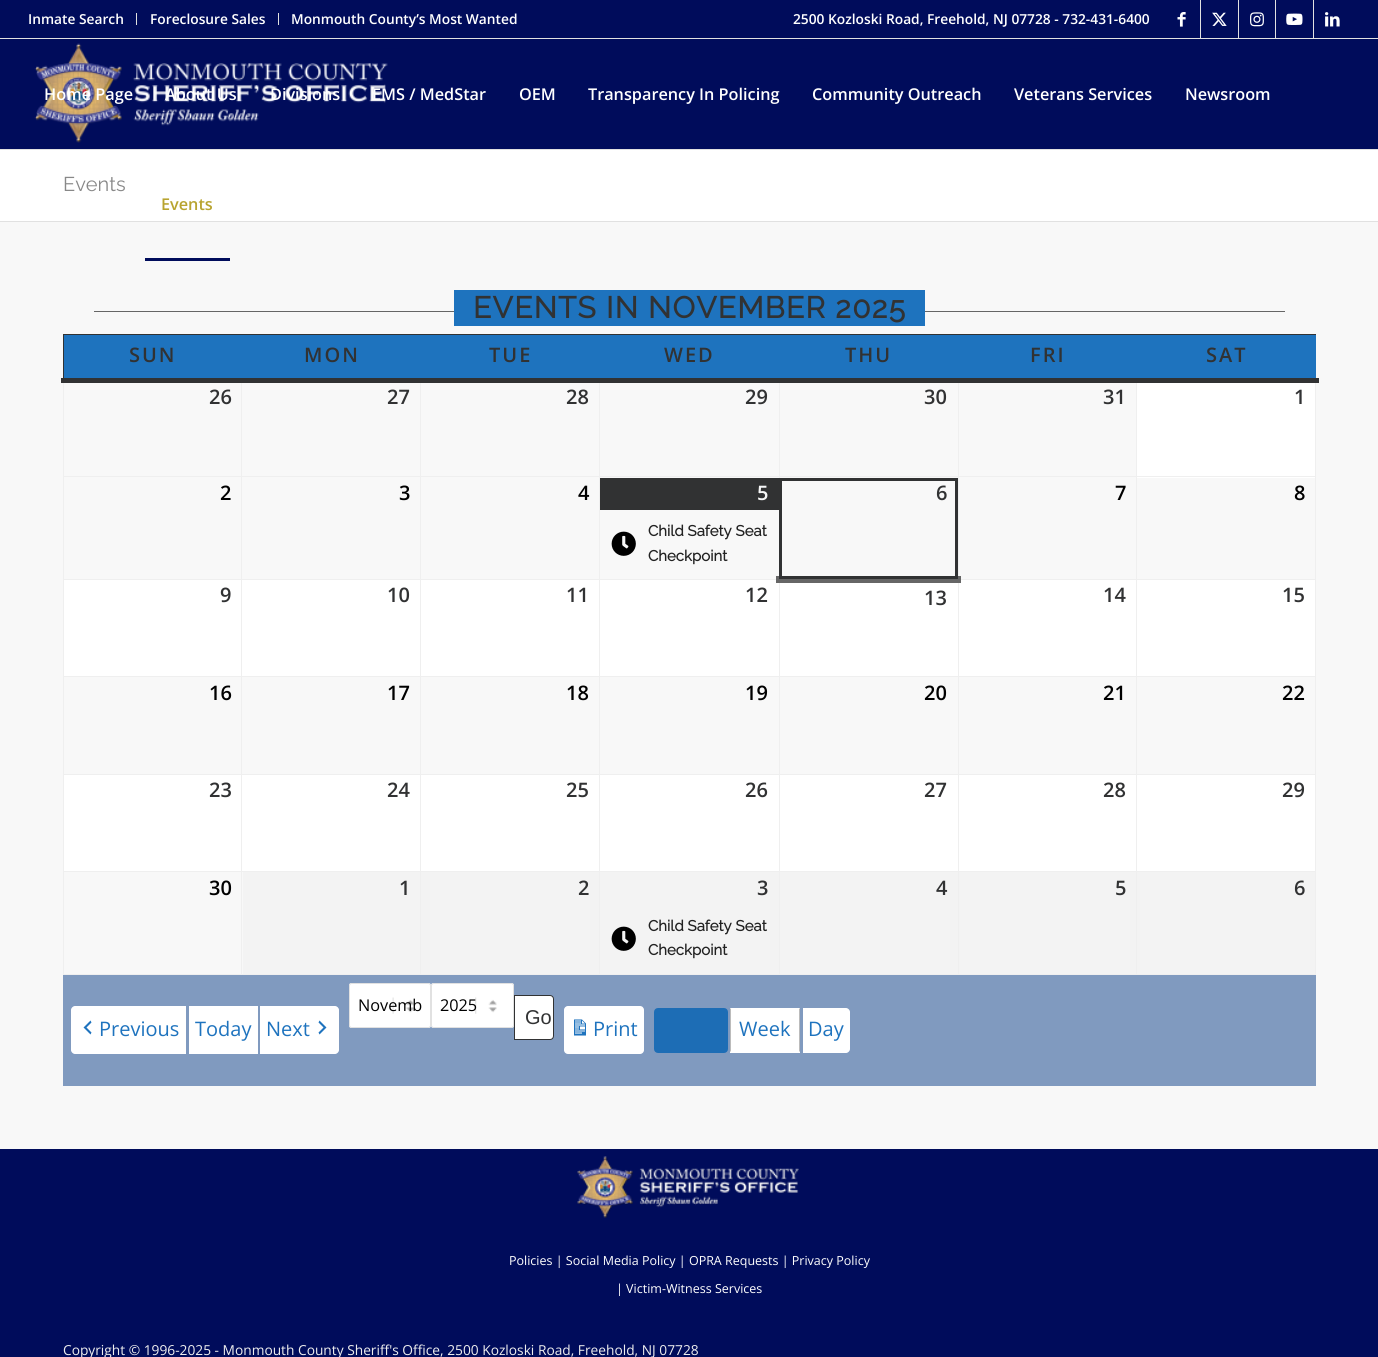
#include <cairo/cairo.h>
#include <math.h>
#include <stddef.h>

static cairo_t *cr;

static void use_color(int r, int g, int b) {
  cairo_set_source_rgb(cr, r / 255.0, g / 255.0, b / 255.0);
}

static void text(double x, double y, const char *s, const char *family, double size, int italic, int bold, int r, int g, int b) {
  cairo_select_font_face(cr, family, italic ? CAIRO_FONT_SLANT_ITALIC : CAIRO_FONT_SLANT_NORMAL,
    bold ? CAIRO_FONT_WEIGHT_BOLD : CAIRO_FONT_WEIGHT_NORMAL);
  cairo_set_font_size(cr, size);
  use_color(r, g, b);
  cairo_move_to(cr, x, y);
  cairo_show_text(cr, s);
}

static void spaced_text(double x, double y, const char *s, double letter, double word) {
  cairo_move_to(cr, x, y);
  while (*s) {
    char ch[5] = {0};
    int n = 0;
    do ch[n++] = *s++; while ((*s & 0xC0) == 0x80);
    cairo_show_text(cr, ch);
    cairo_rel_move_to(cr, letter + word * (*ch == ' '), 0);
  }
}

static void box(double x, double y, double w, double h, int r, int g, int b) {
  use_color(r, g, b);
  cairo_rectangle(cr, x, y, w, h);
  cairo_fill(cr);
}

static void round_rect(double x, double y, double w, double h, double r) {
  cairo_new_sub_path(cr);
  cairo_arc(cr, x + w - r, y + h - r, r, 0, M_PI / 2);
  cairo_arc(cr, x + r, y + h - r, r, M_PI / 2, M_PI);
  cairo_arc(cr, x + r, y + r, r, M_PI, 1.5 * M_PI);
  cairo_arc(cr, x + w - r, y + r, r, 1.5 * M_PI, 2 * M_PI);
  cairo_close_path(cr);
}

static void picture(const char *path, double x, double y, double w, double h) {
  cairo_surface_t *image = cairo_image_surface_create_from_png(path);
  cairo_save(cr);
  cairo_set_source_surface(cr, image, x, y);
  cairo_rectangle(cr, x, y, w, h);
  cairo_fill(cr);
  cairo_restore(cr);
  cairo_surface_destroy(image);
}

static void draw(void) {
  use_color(0, 12, 91);
  cairo_paint(cr);
  box(0, 38, 1378, 1, 225, 225, 225);
  box(136, 13, 1, 12, 225, 225, 225);
  box(278, 13, 1, 12, 225, 225, 225);
  box(1200, 0, 1, 38, 225, 225, 225);
  picture("img_01.png", 1177, 12, 9, 15);
  box(1238, 0, 1, 38, 225, 225, 225);
  picture("img_02.png", 1212, 12, 15, 14);
  box(1275, 0, 1, 38, 225, 225, 225);
  picture("img_03.png", 1250, 12, 14, 15);
  box(1313, 0, 1, 38, 225, 225, 225);
  picture("img_04.png", 1286, 13, 17, 12);
  picture("img_05.png", 1325, 12, 15, 15);
  box(0, 149, 1378, 1, 225, 225, 225);
  picture("img_06.png", 34, 43, 354, 100);
  box(0, 222, 1378, 927, 248, 248, 248);
  box(145, 258, 85, 3, 0, 12, 91);
  box(0, 150, 1378, 71, 255, 255, 255);
  box(0, 221, 1378, 1, 225, 225, 225);
  box(94, 311, 1191, 1, 102, 102, 102);
  box(454, 290, 471, 36, 30, 115, 190);
  box(63, 334, 1253, 1, 49, 50, 51);
  box(1137, 383, 178, 95, 255, 255, 255);
  box(1136, 476, 180, 1, 239, 239, 239);
  box(1136, 579, 180, 1, 239, 239, 239);
  box(64, 580, 1251, 96, 255, 255, 255);
  box(1136, 676, 180, 1, 239, 239, 239);
  box(1136, 774, 180, 1, 239, 239, 239);
  box(64, 775, 1251, 96, 255, 255, 255);
  box(1136, 871, 180, 1, 239, 239, 239);
  box(1315, 871, 1, 104, 239, 239, 239);
  box(1136, 974, 180, 1, 239, 239, 239);
  box(1136, 871, 1, 104, 239, 239, 239);
  box(958, 871, 180, 1, 239, 239, 239);
  box(1136, 774, 1, 99, 239, 239, 239);
  box(958, 774, 180, 1, 239, 239, 239);
  box(1136, 676, 1, 99, 239, 239, 239);
  box(958, 676, 180, 1, 239, 239, 239);
  box(1136, 579, 1, 99, 239, 239, 239);
  box(958, 579, 180, 1, 239, 239, 239);
  box(1136, 476, 1, 104, 239, 239, 239);
  box(958, 476, 180, 1, 239, 239, 239);
  box(958, 974, 180, 1, 239, 239, 239);
  box(958, 871, 1, 104, 239, 239, 239);
  box(779, 871, 180, 1, 239, 239, 239);
  box(958, 774, 1, 99, 239, 239, 239);
  box(779, 774, 180, 1, 239, 239, 239);
  box(958, 676, 1, 99, 239, 239, 239);
  box(779, 676, 180, 1, 239, 239, 239);
  box(958, 579, 1, 99, 239, 239, 239);
  box(958, 476, 1, 104, 239, 239, 239);
  box(599, 476, 360, 1, 239, 239, 239);
  box(779, 974, 180, 1, 239, 239, 239);
  box(779, 871, 1, 104, 239, 239, 239);
  box(599, 871, 181, 1, 239, 239, 239);
  box(779, 774, 1, 99, 239, 239, 239);
  box(599, 774, 181, 1, 239, 239, 239);
  box(779, 676, 1, 99, 239, 239, 239);
  box(599, 676, 181, 1, 239, 239, 239);
  box(779, 579, 1, 99, 239, 239, 239);
  box(599, 579, 181, 1, 239, 239, 239);
  box(599, 974, 181, 1, 239, 239, 239);
  box(599, 871, 1, 104, 239, 239, 239);
  box(420, 871, 180, 1, 239, 239, 239);
  box(599, 774, 1, 99, 239, 239, 239);
  box(420, 774, 180, 1, 239, 239, 239);
  box(599, 676, 1, 99, 239, 239, 239);
  box(420, 676, 180, 1, 239, 239, 239);
  box(599, 579, 1, 99, 239, 239, 239);
  box(420, 579, 180, 1, 239, 239, 239);
  box(599, 476, 1, 104, 239, 239, 239);
  box(420, 476, 180, 1, 239, 239, 239);
  box(420, 974, 180, 1, 239, 239, 239);
  box(420, 871, 1, 104, 239, 239, 239);
  box(241, 871, 180, 1, 239, 239, 239);
  box(420, 774, 1, 99, 239, 239, 239);
  box(241, 774, 180, 1, 239, 239, 239);
  box(420, 676, 1, 99, 239, 239, 239);
  box(241, 676, 180, 1, 239, 239, 239);
  box(420, 579, 1, 99, 239, 239, 239);
  box(241, 579, 180, 1, 239, 239, 239);
  box(420, 476, 1, 104, 239, 239, 239);
  box(241, 476, 180, 1, 239, 239, 239);
  box(241, 974, 180, 1, 239, 239, 239);
  box(241, 871, 1, 104, 239, 239, 239);
  box(63, 871, 180, 1, 239, 239, 239);
  box(241, 774, 1, 99, 239, 239, 239);
  box(63, 774, 180, 1, 239, 239, 239);
  box(241, 676, 1, 99, 239, 239, 239);
  box(63, 676, 180, 1, 239, 239, 239);
  box(241, 579, 1, 99, 239, 239, 239);
  box(63, 579, 180, 1, 239, 239, 239);
  box(241, 476, 1, 104, 239, 239, 239);
  box(63, 476, 180, 1, 239, 239, 239);
  box(63, 974, 180, 1, 239, 239, 239);
  box(63, 871, 1, 104, 239, 239, 239);
  box(63, 774, 1, 99, 239, 239, 239);
  box(63, 676, 1, 99, 239, 239, 239);
  box(63, 579, 1, 99, 239, 239, 239);
  box(63, 379, 1, 201, 239, 239, 239);
  box(63, 334, 1, 46, 49, 50, 51);
  box(241, 379, 1, 99, 239, 239, 239);
  box(420, 379, 1, 99, 239, 239, 239);
  box(599, 379, 1, 99, 239, 239, 239);
  box(779, 379, 1, 99, 239, 239, 239);
  box(958, 379, 1, 99, 239, 239, 239);
  box(1136, 379, 1, 99, 239, 239, 239);
  box(1315, 774, 1, 99, 239, 239, 239);
  box(1315, 676, 1, 99, 239, 239, 239);
  box(1315, 579, 1, 99, 239, 239, 239);
  box(1315, 379, 1, 201, 239, 239, 239);
  box(61, 378, 1258, 5, 49, 50, 51);
  box(64, 335, 1252, 43, 30, 115, 190);
  box(600, 478, 179, 32, 49, 50, 51);
  picture("img_07.png", 611, 531, 25, 25);
  box(776, 576, 185, 7, 102, 102, 102);
  cairo_rectangle(cr, 780.5, 479.5, 176, 98);
  use_color(49, 50, 51);
  cairo_set_line_width(cr, 3);
  cairo_stroke(cr);
  box(243, 872, 177, 102, 243, 243, 243);
  box(421, 872, 178, 102, 243, 243, 243);
  box(600, 872, 179, 102, 243, 243, 243);
  picture("img_08.png", 611, 926, 25, 25);
  box(780, 872, 178, 102, 243, 243, 243);
  box(959, 872, 177, 102, 243, 243, 243);
  box(1137, 872, 178, 102, 243, 243, 243);
  box(63, 975, 1253, 111, 128, 154, 191);
  use_color(255, 255, 255);
  round_rect(349, 983, 82, 45, 2.5);
  cairo_fill(cr);
  picture("img_09.png", 392, 997, 23, 17);
  round_rect(349.5, 983.5, 81, 44, 2);
  use_color(225, 225, 225);
  cairo_set_line_width(cr, 1);
  cairo_stroke(cr);
  use_color(255, 255, 255);
  round_rect(431, 983, 83, 45, 2.5);
  cairo_fill(cr);
  picture("img_10.png", 475, 997, 22, 17);
  round_rect(431.5, 983.5, 82, 44, 2);
  use_color(225, 225, 225);
  cairo_stroke(cr);
  use_color(255, 255, 255);
  cairo_new_path(cr);
  cairo_move_to(cr, 514.5, 995.5);
  cairo_line_to(cr, 550, 995.5);
  cairo_curve_to(cr, 552, 995.5, 553.5, 997, 553.5, 999);
  cairo_line_to(cr, 553.5, 1036);
  cairo_curve_to(cr, 553.5, 1038, 552, 1039.5, 550, 1039.5);
  cairo_line_to(cr, 514.5, 1039.5);
  cairo_close_path(cr);
  cairo_fill_preserve(cr);
  use_color(49, 50, 51);
  cairo_stroke(cr);
  use_color(255, 255, 255);
  cairo_new_path(cr);
  cairo_move_to(cr, 75, 1006);
  cairo_line_to(cr, 186, 1006);
  cairo_line_to(cr, 186, 1054);
  cairo_line_to(cr, 75, 1054);
  cairo_curve_to(cr, 73, 1054, 71, 1052, 71, 1050);
  cairo_line_to(cr, 71, 1010);
  cairo_curve_to(cr, 71, 1008, 73, 1006, 75, 1006);
  cairo_close_path(cr);
  cairo_fill(cr);
  picture("img_11.png", 83, 1020, 9, 15);
  box(189, 1006, 69, 48, 255, 255, 255);
  cairo_new_path(cr);
  cairo_move_to(cr, 260, 1006);
  cairo_line_to(cr, 335, 1006);
  cairo_curve_to(cr, 337, 1006, 339, 1008, 339, 1010);
  cairo_line_to(cr, 339, 1050);
  cairo_curve_to(cr, 339, 1052, 337, 1054, 335, 1054);
  cairo_line_to(cr, 260, 1054);
  cairo_close_path(cr);
  cairo_fill(cr);
  picture("img_12.png", 318, 1020, 9, 15);
  round_rect(564, 1006, 80, 48, 4);
  cairo_fill(cr);
  picture("img_13.png", 574, 1019, 12, 17);
  use_color(29, 109, 181);
  round_rect(655.5, 1009.5, 71, 42, 2.5);
  cairo_fill_preserve(cr);
  cairo_set_line_width(cr, 3);
  cairo_stroke(cr);
  box(730, 1008, 70, 45, 255, 255, 255);
  use_color(187, 187, 187);
  cairo_new_path(cr);
  cairo_move_to(cr, 800, 1008);
  cairo_line_to(cr, 800, 1052);
  cairo_line_to(cr, 799, 1051);
  cairo_line_to(cr, 799, 1009);
  cairo_close_path(cr);
  cairo_fill(cr);
  cairo_new_path(cr);
  cairo_move_to(cr, 730, 1052);
  cairo_line_to(cr, 730, 1008);
  cairo_line_to(cr, 731, 1009);
  cairo_line_to(cr, 731, 1051);
  cairo_close_path(cr);
  cairo_fill(cr);
  use_color(255, 255, 255);
  cairo_new_path(cr);
  cairo_move_to(cr, 803, 1008);
  cairo_line_to(cr, 846, 1008);
  cairo_curve_to(cr, 848, 1008, 850, 1010, 850, 1012);
  cairo_line_to(cr, 850, 1049);
  cairo_curve_to(cr, 850, 1051, 848, 1053, 846, 1053);
  cairo_line_to(cr, 803, 1053);
  cairo_close_path(cr);
  cairo_fill(cr);
  picture("img_14.png", 577, 1156, 222, 62);
  text(28, 24, "Inmate Search", "Open Sans SemiBold", 13.75, 0, 0, 255, 255, 255);
  text(150, 24, "Foreclosure Sales", "Open Sans SemiBold", 13.75, 0, 0, 255, 255, 255);
  text(291, 24, "Monmouth County’s Most Wanted", "Open Sans SemiBold", 13.75, 0, 0, 255, 255, 255);
  text(793, 24, "2500 Kozloski Road, Freehold, NJ 07728 - 732-431-6400", "Open Sans SemiBold", 13.75, 0, 0, 255, 255, 255);
  text(44, 100, "Home Page", "Open Sans SemiBold", 16.25, 0, 0, 255, 255, 255);
  text(165, 100, "About Us", "Open Sans SemiBold", 16.25, 0, 0, 255, 255, 255);
  text(270, 100, "Divisions", "Open Sans SemiBold", 16.25, 0, 0, 255, 255, 255);
  text(372, 100, "EMS / MedStar", "Open Sans SemiBold", 16.25, 0, 0, 255, 255, 255);
  text(519, 100, "OEM", "Open Sans SemiBold", 16.25, 0, 0, 255, 255, 255);
  text(588, 100, "Transparency In Policing", "Open Sans SemiBold", 16.25, 0, 0, 255, 255, 255);
  text(812, 100, "Community Outreach", "Open Sans SemiBold", 16.25, 0, 0, 255, 255, 255);
  text(1014, 100, "Veterans Services", "Open Sans SemiBold", 16.25, 0, 0, 255, 255, 255);
  text(1185, 100, "Newsroom", "Open Sans SemiBold", 16.25, 0, 0, 255, 255, 255);
  text(161, 210, "Events", "Open Sans SemiBold", 16.25, 0, 0, 184, 164, 48);
  text(63, 191, "Events", "Raleway Thin", 20, 0, 0, 136, 136, 136);
  cairo_select_font_face(cr, "Raleway", CAIRO_FONT_SLANT_NORMAL, CAIRO_FONT_WEIGHT_BOLD);
  cairo_set_font_size(cr, 30);
  use_color(49, 50, 51);
  spaced_text(473, 318, "EVENTS IN NOVEMBER 2025", 1.25, 0);
  cairo_select_font_face(cr, "Open Sans SemiBold", CAIRO_FONT_SLANT_NORMAL, CAIRO_FONT_WEIGHT_NORMAL);
  cairo_set_font_size(cr, 20);
  spaced_text(129, 362, "SUN", 2, 0);
  spaced_text(304, 362, "MON", 2, 0);
  spaced_text(489, 362, "TUE", 2, 0);
  spaced_text(664, 362, "WED", 2, 0);
  spaced_text(845, 362, "THU", 2, 0);
  spaced_text(1030, 362, "FRI", 2, 0);
  spaced_text(1206, 362, "SAT", 2, 0);
  text(209, 404, "26", "Open Sans SemiBold", 20, 0, 0, 49, 50, 51);
  text(387, 404, "27", "Open Sans SemiBold", 20, 0, 0, 49, 50, 51);
  text(566, 404, "28", "Open Sans SemiBold", 20, 0, 0, 49, 50, 51);
  text(745, 404, "29", "Open Sans SemiBold", 20, 0, 0, 49, 50, 51);
  text(924, 404, "30", "Open Sans SemiBold", 20, 0, 0, 49, 50, 51);
  text(1103, 404, "31", "Open Sans SemiBold", 20, 0, 0, 49, 50, 51);
  text(1294, 404, "1", "Open Sans SemiBold", 20, 0, 0, 49, 50, 51);
  text(220, 500, "2", "Open Sans SemiBold", 20, 0, 0, 0, 0, 0);
  text(399, 500, "3", "Open Sans SemiBold", 20, 0, 0, 0, 0, 0);
  text(578, 500, "4", "Open Sans SemiBold", 20, 0, 0, 0, 0, 0);
  text(757, 500, "5", "Open Sans SemiBold", 20, 0, 0, 246, 247, 247);
  text(648, 536, "Child Safety Seat", "Raleway", 15, 0, 1, 34, 34, 34);
  text(648, 561, "Checkpoint", "Raleway", 15, 0, 1, 34, 34, 34);
  text(936, 500, "6", "Open Sans SemiBold", 20, 0, 0, 49, 50, 51);
  text(1115, 500, "7", "Open Sans SemiBold", 20, 0, 0, 0, 0, 0);
  text(1294, 500, "8", "Open Sans SemiBold", 20, 0, 0, 0, 0, 0);
  text(220, 602, "9", "Open Sans SemiBold", 20, 0, 0, 49, 50, 51);
  text(387, 602, "10", "Open Sans SemiBold", 20, 0, 0, 49, 50, 51);
  text(566, 602, "11", "Open Sans SemiBold", 20, 0, 0, 49, 50, 51);
  text(745, 602, "12", "Open Sans SemiBold", 20, 0, 0, 49, 50, 51);
  text(924, 605, "13", "Open Sans SemiBold", 20, 0, 0, 49, 50, 51);
  text(1103, 602, "14", "Open Sans SemiBold", 20, 0, 0, 49, 50, 51);
  text(1282, 602, "15", "Open Sans SemiBold", 20, 0, 0, 49, 50, 51);
  text(209, 700, "16", "Open Sans SemiBold", 20, 0, 0, 0, 0, 0);
  text(387, 700, "17", "Open Sans SemiBold", 20, 0, 0, 0, 0, 0);
  text(566, 700, "18", "Open Sans SemiBold", 20, 0, 0, 0, 0, 0);
  text(745, 700, "19", "Open Sans SemiBold", 20, 0, 0, 0, 0, 0);
  text(924, 700, "20", "Open Sans SemiBold", 20, 0, 0, 0, 0, 0);
  text(1103, 700, "21", "Open Sans SemiBold", 20, 0, 0, 0, 0, 0);
  text(1282, 700, "22", "Open Sans SemiBold", 20, 0, 0, 0, 0, 0);
  text(209, 797, "23", "Open Sans SemiBold", 20, 0, 0, 49, 50, 51);
  text(387, 797, "24", "Open Sans SemiBold", 20, 0, 0, 49, 50, 51);
  text(566, 797, "25", "Open Sans SemiBold", 20, 0, 0, 49, 50, 51);
  text(745, 797, "26", "Open Sans SemiBold", 20, 0, 0, 49, 50, 51);
  text(924, 797, "27", "Open Sans SemiBold", 20, 0, 0, 49, 50, 51);
  text(1103, 797, "28", "Open Sans SemiBold", 20, 0, 0, 49, 50, 51);
  text(1282, 797, "29", "Open Sans SemiBold", 20, 0, 0, 49, 50, 51);
  text(209, 895, "30", "Open Sans SemiBold", 20, 0, 0, 0, 0, 0);
  text(399, 895, "1", "Open Sans SemiBold", 20, 0, 0, 49, 50, 51);
  text(578, 895, "2", "Open Sans SemiBold", 20, 0, 0, 49, 50, 51);
  text(757, 895, "3", "Open Sans SemiBold", 20, 0, 0, 49, 50, 51);
  text(648, 931, "Child Safety Seat", "Raleway", 15, 0, 1, 34, 34, 34);
  text(648, 955, "Checkpoint", "Raleway", 15, 0, 1, 34, 34, 34);
  text(936, 895, "4", "Open Sans SemiBold", 20, 0, 0, 49, 50, 51);
  text(1115, 895, "5", "Open Sans SemiBold", 20, 0, 0, 49, 50, 51);
  text(1294, 895, "6", "Open Sans SemiBold", 20, 0, 0, 49, 50, 51);
  text(358, 1011, "Novemb", "Open Sans", 16.25, 0, 0, 0, 0, 0);
  text(440, 1011, "2025", "Open Sans", 16.25, 0, 0, 0, 0, 0);
  text(525, 1024, "Go", "Liberation Sans", 20, 0, 0, 49, 50, 51);
  text(99, 1036, "Previous", "Open Sans", 20, 0, 0, 30, 115, 190);
  text(195, 1036, "Today", "Open Sans", 20, 0, 0, 30, 115, 190);
  text(266, 1036, "Next", "Open Sans", 20, 0, 0, 30, 115, 190);
  text(593, 1036, "Print", "Open Sans", 20, 0, 0, 30, 115, 190);
  text(739, 1036, "Week", "Open Sans", 20, 0, 0, 30, 115, 190);
  text(808, 1036, "Day", "Open Sans", 20, 0, 0, 30, 115, 190);
  text(509, 1265, "Policies | Social Media Policy | OPRA Requests | Privacy Policy", "Open Sans", 12.5, 0, 0, 255, 255, 255);
  text(616, 1293, "| Victim-Witness Services", "Open Sans", 12.5, 0, 0, 255, 255, 255);
  text(63, 1355, "Copyright © 1996-2025 - Monmouth County Sheriff's Office, 2500 Kozloski Road, Freehold, NJ 07728", "Open Sans", 13.75, 0, 0, 238, 238, 238);
}

int main(void) {
  cairo_surface_t *surface = cairo_image_surface_create(CAIRO_FORMAT_RGB24, 1378, 1357);
  cr = cairo_create(surface);
  cairo_font_options_t *options = cairo_font_options_create();
  cairo_font_options_set_hint_metrics(options, CAIRO_HINT_METRICS_OFF);
  cairo_font_options_set_hint_style(options, CAIRO_HINT_STYLE_NONE);
  cairo_set_font_options(cr, options);
  cairo_set_miter_limit(cr, 4);
  draw();
  cairo_surface_write_to_png(surface, "out.png");
  cairo_font_options_destroy(options);
  cairo_destroy(cr);
  cairo_surface_destroy(surface);
  return 0;
}
